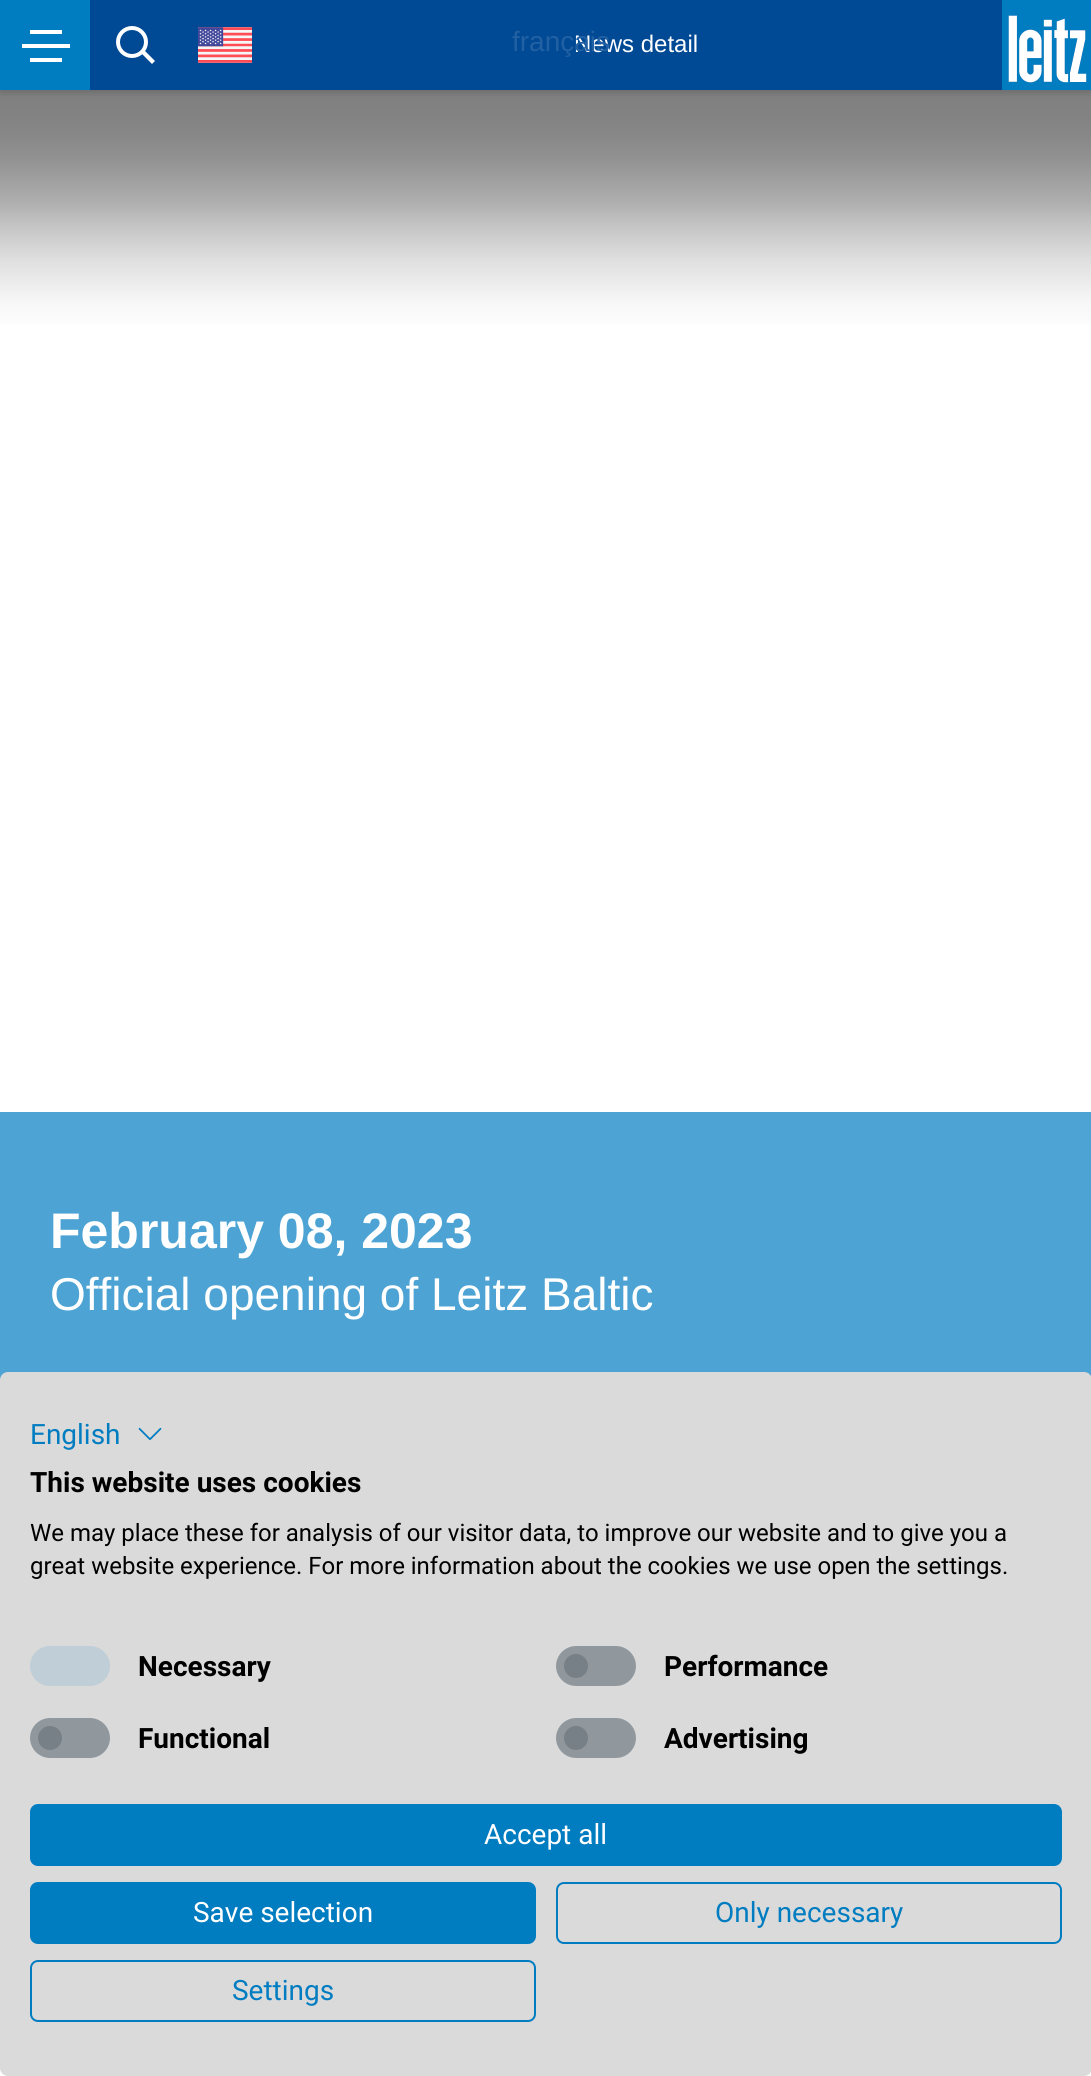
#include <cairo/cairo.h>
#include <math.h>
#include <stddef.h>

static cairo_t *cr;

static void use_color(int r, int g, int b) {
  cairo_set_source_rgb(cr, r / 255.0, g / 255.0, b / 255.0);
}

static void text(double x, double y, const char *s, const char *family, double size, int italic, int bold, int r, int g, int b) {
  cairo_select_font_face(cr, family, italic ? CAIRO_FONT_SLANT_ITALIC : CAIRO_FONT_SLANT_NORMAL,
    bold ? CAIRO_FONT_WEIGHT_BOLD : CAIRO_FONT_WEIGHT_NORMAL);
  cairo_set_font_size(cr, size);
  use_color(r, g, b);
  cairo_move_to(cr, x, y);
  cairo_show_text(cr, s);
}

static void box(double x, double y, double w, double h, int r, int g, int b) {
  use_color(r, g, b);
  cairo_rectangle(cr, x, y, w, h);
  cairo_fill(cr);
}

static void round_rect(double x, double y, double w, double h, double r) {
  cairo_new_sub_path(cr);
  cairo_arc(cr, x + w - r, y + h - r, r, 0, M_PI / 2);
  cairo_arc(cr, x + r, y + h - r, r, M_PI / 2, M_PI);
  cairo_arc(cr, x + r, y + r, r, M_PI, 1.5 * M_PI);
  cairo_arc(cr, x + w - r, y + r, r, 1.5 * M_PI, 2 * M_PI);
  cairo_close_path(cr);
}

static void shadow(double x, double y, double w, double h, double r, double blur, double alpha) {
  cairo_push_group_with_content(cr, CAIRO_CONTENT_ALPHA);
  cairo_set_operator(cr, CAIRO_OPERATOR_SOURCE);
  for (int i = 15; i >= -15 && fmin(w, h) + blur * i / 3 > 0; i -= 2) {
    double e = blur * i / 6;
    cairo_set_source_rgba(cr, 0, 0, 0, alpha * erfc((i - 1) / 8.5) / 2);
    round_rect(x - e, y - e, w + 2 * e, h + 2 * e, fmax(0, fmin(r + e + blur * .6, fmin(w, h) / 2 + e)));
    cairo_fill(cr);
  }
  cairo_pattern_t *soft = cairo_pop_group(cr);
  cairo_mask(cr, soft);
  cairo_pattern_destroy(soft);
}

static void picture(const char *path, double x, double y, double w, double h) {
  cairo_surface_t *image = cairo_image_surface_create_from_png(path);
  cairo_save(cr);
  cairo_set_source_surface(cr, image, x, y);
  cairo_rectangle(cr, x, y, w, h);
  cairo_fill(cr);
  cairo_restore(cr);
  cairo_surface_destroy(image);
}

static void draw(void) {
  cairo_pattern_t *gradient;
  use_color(255, 255, 255);
  cairo_paint(cr);
  gradient = cairo_pattern_create_linear(546, 352, 546, 90);
  cairo_pattern_add_color_stop_rgba(gradient, 0, 1, 1, 1, 1);
  cairo_pattern_add_color_stop_rgba(gradient, 0.1, 0.992, 0.992, 0.992, 1);
  cairo_pattern_add_color_stop_rgba(gradient, 0.19, 0.969, 0.969, 0.969, 1);
  cairo_pattern_add_color_stop_rgba(gradient, 0.27, 0.922, 0.922, 0.922, 1);
  cairo_pattern_add_color_stop_rgba(gradient, 0.35, 0.875, 0.875, 0.875, 1);
  cairo_pattern_add_color_stop_rgba(gradient, 0.43, 0.812, 0.812, 0.812, 1);
  cairo_pattern_add_color_stop_rgba(gradient, 0.5, 0.753, 0.753, 0.753, 1);
  cairo_pattern_add_color_stop_rgba(gradient, 0.57, 0.686, 0.686, 0.686, 1);
  cairo_pattern_add_color_stop_rgba(gradient, 0.65, 0.631, 0.631, 0.631, 1);
  cairo_pattern_add_color_stop_rgba(gradient, 0.73, 0.576, 0.576, 0.576, 1);
  cairo_pattern_add_color_stop_rgba(gradient, 0.81, 0.537, 0.537, 0.537, 1);
  cairo_pattern_add_color_stop_rgba(gradient, 0.9, 0.51, 0.51, 0.51, 1);
  cairo_pattern_add_color_stop_rgba(gradient, 1, 0.502, 0.502, 0.502, 1);
  cairo_set_source(cr, gradient);
  cairo_pattern_destroy(gradient);
  cairo_rectangle(cr, 0, 90, 1091, 234);
  cairo_fill(cr);
  use_color(0, 0, 0);
  shadow(0, 0, 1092, 90, 0, 5, 0.27);
  box(90, 0, 997, 90, 0, 73, 148);
  box(0, 0, 90, 90, 0, 124, 193);
  box(30, 30, 32, 4, 255, 255, 255);
  box(22, 44, 48, 4, 255, 255, 255);
  box(30, 58, 32, 4, 255, 255, 255);
  cairo_arc(cr, 132, 42, 14, 0, 2 * M_PI);
  cairo_set_line_width(cr, 4);
  cairo_stroke(cr);
  cairo_new_path(cr);
  cairo_move_to(cr, 144, 50);
  cairo_line_to(cr, 155, 61);
  cairo_line_to(cr, 152, 64);
  cairo_line_to(cr, 141, 53);
  cairo_close_path(cr);
  cairo_fill(cr);
  picture("img_01.png", 198, 27, 54, 36);
  picture("img_02.png", 1002, 0, 89, 90);
  box(0, 1112, 1091, 268, 77, 164, 212);
  use_color(218, 218, 218);
  round_rect(0, 1372, 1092, 704, 8);
  cairo_fill(cr);
  picture("img_03.png", 138, 1427, 24, 13);
  use_color(191, 206, 215);
  cairo_new_path(cr);
  cairo_move_to(cr, 50, 1646);
  cairo_line_to(cr, 90, 1646);
  cairo_curve_to(cr, 101, 1646, 110, 1655, 110, 1666);
  cairo_curve_to(cr, 110, 1677, 101, 1686, 90, 1686);
  cairo_line_to(cr, 50, 1686);
  cairo_curve_to(cr, 39, 1686, 30, 1677, 30, 1666);
  cairo_curve_to(cr, 30, 1655, 39, 1646, 50, 1646);
  cairo_close_path(cr);
  cairo_fill(cr);
  use_color(233, 236, 239);
  round_rect(556, 1646, 80, 40, 20);
  cairo_fill(cr);
  use_color(146, 153, 159);
  cairo_arc(cr, 576, 1666, 12, 0, 2 * M_PI);
  cairo_fill(cr);
  cairo_set_source_rgba(cr, 0.424, 0.459, 0.49, 0.7);
  cairo_new_path(cr);
  cairo_move_to(cr, 576, 1646);
  cairo_line_to(cr, 616, 1646);
  cairo_curve_to(cr, 627, 1646, 636, 1655, 636, 1666);
  cairo_curve_to(cr, 636, 1677, 627, 1686, 616, 1686);
  cairo_line_to(cr, 576, 1686);
  cairo_curve_to(cr, 565, 1686, 556, 1677, 556, 1666);
  cairo_curve_to(cr, 556, 1655, 565, 1646, 576, 1646);
  cairo_close_path(cr);
  cairo_fill(cr);
  use_color(233, 236, 239);
  round_rect(30, 1718, 80, 40, 20);
  cairo_fill(cr);
  use_color(146, 153, 159);
  cairo_arc(cr, 50, 1738, 12, 0, 2 * M_PI);
  cairo_fill(cr);
  cairo_set_source_rgba(cr, 0.424, 0.459, 0.49, 0.7);
  cairo_new_path(cr);
  cairo_move_to(cr, 50, 1718);
  cairo_line_to(cr, 90, 1718);
  cairo_curve_to(cr, 101, 1718, 110, 1727, 110, 1738);
  cairo_curve_to(cr, 110, 1749, 101, 1758, 90, 1758);
  cairo_line_to(cr, 50, 1758);
  cairo_curve_to(cr, 39, 1758, 30, 1749, 30, 1738);
  cairo_curve_to(cr, 30, 1727, 39, 1718, 50, 1718);
  cairo_close_path(cr);
  cairo_fill(cr);
  use_color(233, 236, 239);
  round_rect(556, 1718, 80, 40, 20);
  cairo_fill(cr);
  use_color(146, 153, 159);
  cairo_arc(cr, 576, 1738, 12, 0, 2 * M_PI);
  cairo_fill(cr);
  cairo_set_source_rgba(cr, 0.424, 0.459, 0.49, 0.7);
  cairo_new_path(cr);
  cairo_move_to(cr, 576, 1718);
  cairo_line_to(cr, 616, 1718);
  cairo_curve_to(cr, 627, 1718, 636, 1727, 636, 1738);
  cairo_curve_to(cr, 636, 1749, 627, 1758, 616, 1758);
  cairo_line_to(cr, 576, 1758);
  cairo_curve_to(cr, 565, 1758, 556, 1749, 556, 1738);
  cairo_curve_to(cr, 556, 1727, 565, 1718, 576, 1718);
  cairo_close_path(cr);
  cairo_fill(cr);
  use_color(0, 124, 193);
  round_rect(31, 1805, 1030, 60, 7);
  cairo_fill_preserve(cr);
  cairo_set_line_width(cr, 2);
  cairo_stroke(cr);
  round_rect(31, 1883, 504, 60, 7);
  cairo_fill_preserve(cr);
  cairo_stroke(cr);
  round_rect(557, 1883, 504, 60, 7);
  cairo_stroke(cr);
  round_rect(31, 1961, 504, 60, 7);
  cairo_stroke(cr);
  text(574, 52, "News detail", "Liberation Sans", 24, 0, 0, 255, 255, 255);
  text(512, 51, "français", "Liberation Sans", 28, 0, 0, 33, 96, 162);
  text(50, 1248, "February 08, 2023", "Liberation Sans", 50, 0, 1, 255, 255, 255);
  text(50, 1310, "Official opening of Leitz Baltic", "Liberation Sans", 46, 0, 0, 255, 255, 255);
  text(30, 1444, "English", "Roboto", 28, 0, 0, 0, 124, 193);
  text(30, 1492, "This website uses cookies", "Roboto", 28, 0, 1, 0, 0, 0);
  text(30, 1541, "We may place these for analysis of our visitor data, to improve our website and to give you a", "Roboto", 24, 0, 0, 0, 0, 0);
  text(30, 1574, "great website experience. For more information about the cookies we use open the settings.", "Roboto", 24, 0, 0, 0, 0, 0);
  text(138, 1676, "Necessary", "Roboto", 28, 0, 1, 0, 0, 0);
  text(664, 1676, "Performance", "Roboto", 28, 0, 1, 0, 0, 0);
  text(138, 1748, "Functional", "Roboto", 28, 0, 1, 0, 0, 0);
  text(664, 1748, "Advertising", "Roboto", 28, 0, 1, 0, 0, 0);
  text(484, 1844, "Accept all", "Roboto", 28, 0, 0, 255, 255, 255);
  text(193, 1922, "Save selection", "Roboto", 28, 0, 0, 255, 255, 255);
  text(715, 1922, "Only necessary", "Roboto", 28, 0, 0, 0, 124, 193);
  text(232, 2000, "Settings", "Roboto", 28, 0, 0, 0, 124, 193);
}

int main(void) {
  cairo_surface_t *surface = cairo_image_surface_create(CAIRO_FORMAT_RGB24, 1091, 2076);
  cr = cairo_create(surface);
  cairo_font_options_t *options = cairo_font_options_create();
  cairo_font_options_set_hint_metrics(options, CAIRO_HINT_METRICS_OFF);
  cairo_font_options_set_hint_style(options, CAIRO_HINT_STYLE_NONE);
  cairo_set_font_options(cr, options);
  cairo_set_miter_limit(cr, 4);
  draw();
  cairo_surface_write_to_png(surface, "out.png");
  cairo_font_options_destroy(options);
  cairo_destroy(cr);
  cairo_surface_destroy(surface);
  return 0;
}
